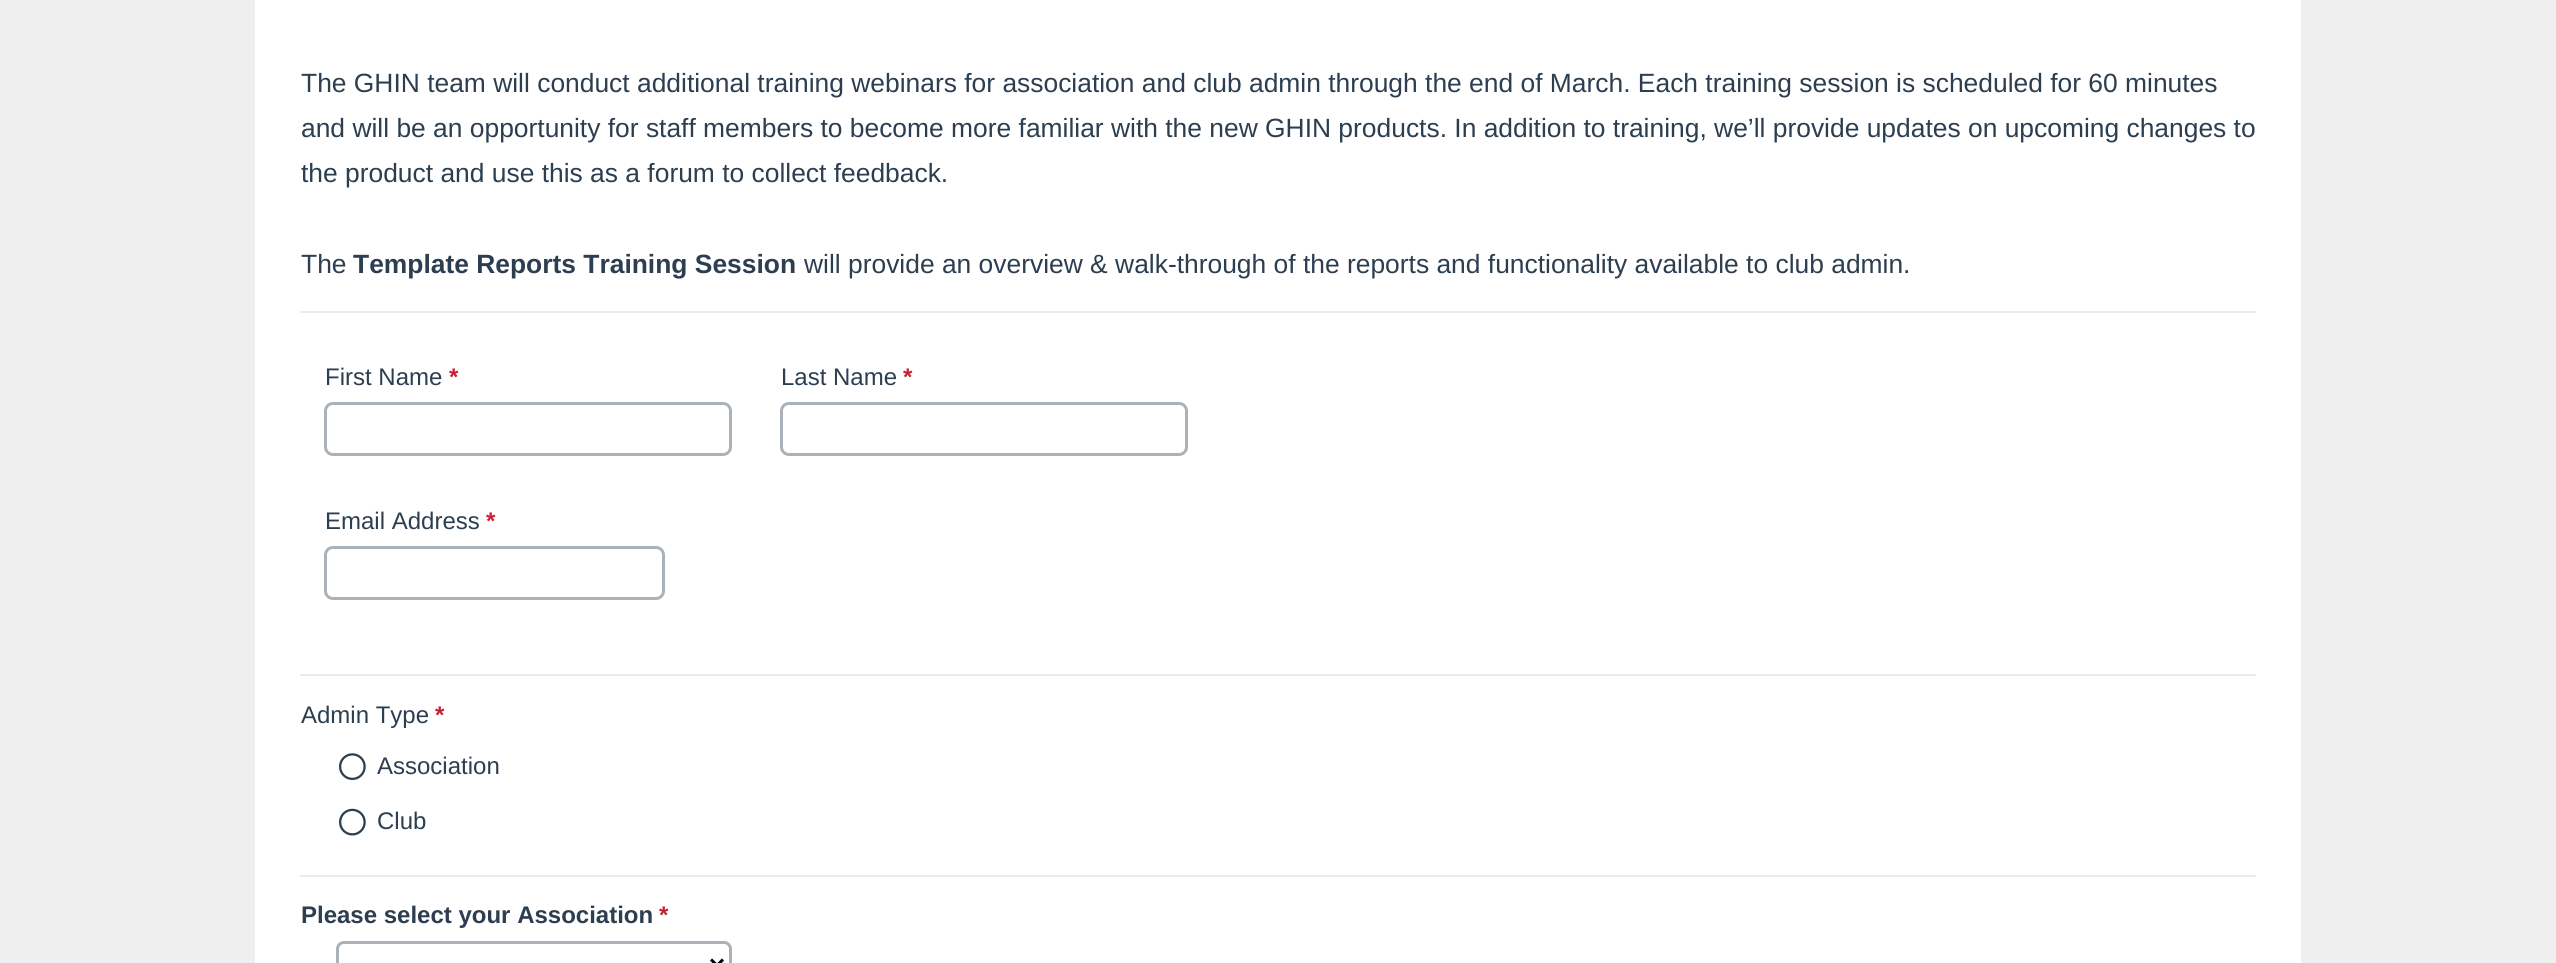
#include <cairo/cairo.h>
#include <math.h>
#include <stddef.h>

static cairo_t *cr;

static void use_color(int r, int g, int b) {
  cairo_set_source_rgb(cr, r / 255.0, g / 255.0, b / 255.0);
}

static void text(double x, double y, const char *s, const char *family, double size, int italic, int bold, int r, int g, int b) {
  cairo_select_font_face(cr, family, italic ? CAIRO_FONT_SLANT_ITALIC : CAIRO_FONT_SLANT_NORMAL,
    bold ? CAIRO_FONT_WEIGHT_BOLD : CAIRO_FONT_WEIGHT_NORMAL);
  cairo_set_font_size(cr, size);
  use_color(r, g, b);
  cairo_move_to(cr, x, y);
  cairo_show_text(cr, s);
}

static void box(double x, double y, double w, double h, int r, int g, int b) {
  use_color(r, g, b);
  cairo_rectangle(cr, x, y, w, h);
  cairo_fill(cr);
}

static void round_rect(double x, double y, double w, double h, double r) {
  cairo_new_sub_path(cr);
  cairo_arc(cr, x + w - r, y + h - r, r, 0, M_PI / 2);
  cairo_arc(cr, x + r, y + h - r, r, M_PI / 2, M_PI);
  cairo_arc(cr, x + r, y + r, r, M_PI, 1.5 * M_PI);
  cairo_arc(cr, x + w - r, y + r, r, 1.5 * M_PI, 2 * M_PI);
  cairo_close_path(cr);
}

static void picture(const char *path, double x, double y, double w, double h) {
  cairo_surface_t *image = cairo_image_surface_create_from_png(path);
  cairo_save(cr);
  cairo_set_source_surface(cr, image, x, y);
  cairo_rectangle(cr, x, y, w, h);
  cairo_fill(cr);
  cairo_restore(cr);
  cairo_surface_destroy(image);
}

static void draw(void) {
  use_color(239, 239, 239);
  cairo_paint(cr);
  box(255, 0, 2046, 963, 255, 255, 255);
  box(300, 311, 1956, 2, 233, 235, 237);
  box(300, 674, 1956, 2, 233, 235, 237);
  round_rect(325.5, 403.5, 405, 51, 7.5);
  use_color(170, 177, 185);
  cairo_set_line_width(cr, 3);
  cairo_stroke(cr);
  round_rect(781.5, 403.5, 405, 51, 7.5);
  cairo_stroke(cr);
  round_rect(325.5, 547.5, 338, 51, 7.5);
  cairo_stroke(cr);
  box(300, 875, 1956, 2, 233, 235, 237);
  picture("img_01.png", 339, 753, 27, 27);
  picture("img_02.png", 339, 808, 27, 28);
  round_rect(337.5, 942.5, 393, 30, 6.5);
  use_color(170, 177, 185);
  cairo_stroke(cr);
  cairo_new_path(cr);
  cairo_move_to(cr, 711, 959.5);
  cairo_line_to(cr, 717, 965.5);
  cairo_line_to(cr, 723, 959.5);
  use_color(0, 0, 0);
  cairo_stroke(cr);
  text(301, 92, "The GHIN team will conduct additional training webinars for association and club admin through the end of March. Each training session is scheduled for 60 minutes", "Liberation Sans", 26.4, 0, 0, 44, 62, 80);
  text(301, 137, "and will be an opportunity for staff members to become more familiar with the new GHIN products. In addition to training, we’ll provide updates on upcoming changes to", "Liberation Sans", 26.4, 0, 0, 44, 62, 80);
  text(301, 182, "the product and use this as a forum to collect feedback.", "Liberation Sans", 26.4, 0, 0, 44, 62, 80);
  text(301, 273, "The", "Liberation Sans", 26.4, 0, 0, 44, 62, 80);
  text(353, 273, "Template Reports Training Session", "Liberation Sans", 26.4, 0, 1, 44, 62, 80);
  text(804, 273, "will provide an overview & walk-through of the reports and functionality available to club admin.", "Liberation Sans", 26.4, 0, 0, 44, 62, 80);
  text(325, 385, "First Name", "Liberation Sans", 24, 0, 0, 44, 62, 80);
  text(449, 385, "*", "Liberation Sans", 24, 0, 1, 202, 30, 52);
  text(781, 385, "Last Name", "Liberation Sans", 24, 0, 0, 44, 62, 80);
  text(903, 385, "*", "Liberation Sans", 24, 0, 1, 202, 30, 52);
  text(325, 529, "Email Address", "Liberation Sans", 24, 0, 0, 44, 62, 80);
  text(486, 529, "*", "Liberation Sans", 24, 0, 1, 202, 30, 52);
  text(301, 723, "Admin Type", "Liberation Sans", 24, 0, 0, 44, 62, 80);
  text(435, 723, "*", "Liberation Sans", 24, 0, 1, 202, 30, 52);
  text(377, 774, "Association", "Liberation Sans", 24, 0, 0, 44, 62, 80);
  text(377, 829, "Club", "Liberation Sans", 24, 0, 0, 44, 62, 80);
  text(301, 923, "Please select your Association", "Liberation Sans", 24, 0, 1, 44, 62, 80);
  text(659, 923, "*", "Liberation Sans", 24, 0, 1, 202, 30, 52);
}

int main(void) {
  cairo_surface_t *surface = cairo_image_surface_create(CAIRO_FORMAT_RGB24, 2556, 963);
  cr = cairo_create(surface);
  cairo_font_options_t *options = cairo_font_options_create();
  cairo_font_options_set_hint_metrics(options, CAIRO_HINT_METRICS_OFF);
  cairo_font_options_set_hint_style(options, CAIRO_HINT_STYLE_NONE);
  cairo_set_font_options(cr, options);
  cairo_set_miter_limit(cr, 4);
  draw();
  cairo_surface_write_to_png(surface, "out.png");
  cairo_font_options_destroy(options);
  cairo_destroy(cr);
  cairo_surface_destroy(surface);
  return 0;
}
